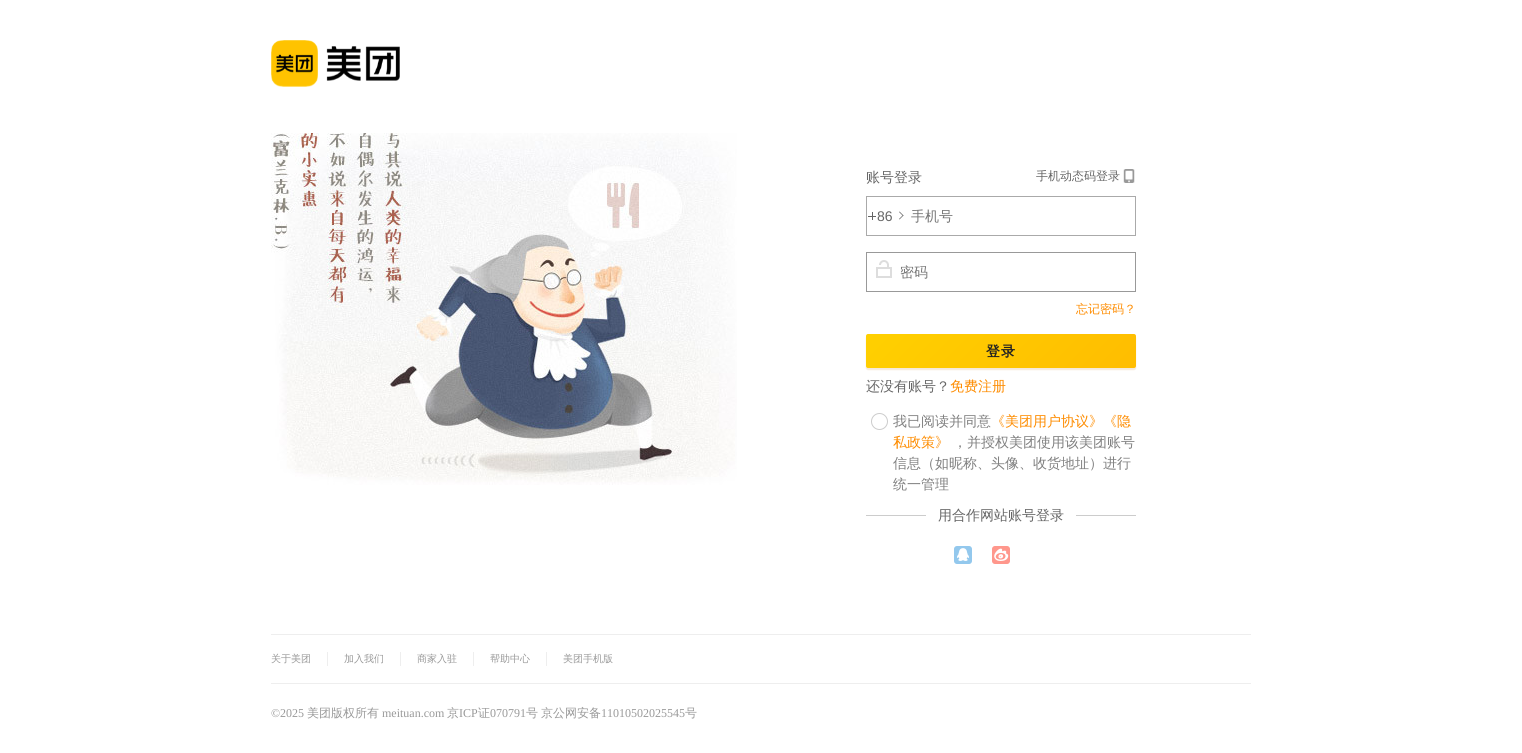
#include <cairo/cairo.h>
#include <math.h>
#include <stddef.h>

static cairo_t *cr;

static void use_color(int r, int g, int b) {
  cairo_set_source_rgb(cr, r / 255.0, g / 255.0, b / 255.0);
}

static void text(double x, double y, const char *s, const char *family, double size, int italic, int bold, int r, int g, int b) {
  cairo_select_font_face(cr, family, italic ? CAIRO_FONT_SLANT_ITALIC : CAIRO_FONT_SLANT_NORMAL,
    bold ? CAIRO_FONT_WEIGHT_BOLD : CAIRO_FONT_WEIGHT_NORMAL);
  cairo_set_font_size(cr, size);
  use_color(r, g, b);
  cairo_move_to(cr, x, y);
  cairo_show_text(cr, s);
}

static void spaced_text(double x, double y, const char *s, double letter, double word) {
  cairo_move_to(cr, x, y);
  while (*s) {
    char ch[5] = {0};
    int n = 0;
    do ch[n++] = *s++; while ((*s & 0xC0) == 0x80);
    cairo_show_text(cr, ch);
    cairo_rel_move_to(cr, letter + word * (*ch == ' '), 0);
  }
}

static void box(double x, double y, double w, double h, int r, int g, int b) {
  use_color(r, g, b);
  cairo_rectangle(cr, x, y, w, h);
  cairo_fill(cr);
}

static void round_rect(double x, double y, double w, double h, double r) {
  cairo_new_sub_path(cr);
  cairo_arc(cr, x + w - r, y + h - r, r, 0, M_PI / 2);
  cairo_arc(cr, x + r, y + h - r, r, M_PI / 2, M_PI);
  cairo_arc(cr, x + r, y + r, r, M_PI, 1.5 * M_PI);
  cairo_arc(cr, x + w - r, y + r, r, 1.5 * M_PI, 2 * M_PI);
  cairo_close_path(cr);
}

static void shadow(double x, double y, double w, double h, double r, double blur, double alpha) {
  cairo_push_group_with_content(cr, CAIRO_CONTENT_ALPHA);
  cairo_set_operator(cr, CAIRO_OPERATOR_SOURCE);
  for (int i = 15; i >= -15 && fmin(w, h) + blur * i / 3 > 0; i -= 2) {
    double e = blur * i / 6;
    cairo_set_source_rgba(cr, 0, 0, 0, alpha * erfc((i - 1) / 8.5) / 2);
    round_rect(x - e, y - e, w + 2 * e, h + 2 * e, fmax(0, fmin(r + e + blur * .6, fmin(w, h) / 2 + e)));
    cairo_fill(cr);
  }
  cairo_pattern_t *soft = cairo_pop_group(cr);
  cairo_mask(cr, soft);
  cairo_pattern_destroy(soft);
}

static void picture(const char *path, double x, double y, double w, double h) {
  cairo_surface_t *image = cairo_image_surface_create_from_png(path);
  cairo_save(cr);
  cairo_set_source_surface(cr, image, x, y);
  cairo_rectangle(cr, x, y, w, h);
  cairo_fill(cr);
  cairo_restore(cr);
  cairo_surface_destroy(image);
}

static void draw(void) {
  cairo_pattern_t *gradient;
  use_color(255, 255, 255);
  cairo_paint(cr);
  picture("img_01.png", 271, 40, 129, 47);
  picture("img_02.png", 271, 133, 466, 352);
  picture("img_03.png", 1123, 169, 12, 14);
  cairo_rectangle(cr, 866.5, 196.5, 269, 39);
  use_color(170, 170, 170);
  cairo_set_line_width(cr, 1);
  cairo_stroke(cr);
  box(868, 216, 8, 1, 100, 100, 100);
  box(872, 212, 1, 8, 100, 100, 100);
  cairo_new_path(cr);
  cairo_move_to(cr, 899.5, 211.5);
  cairo_line_to(cr, 903.5, 215.5);
  cairo_line_to(cr, 903, 216);
  cairo_line_to(cr, 899, 212);
  cairo_close_path(cr);
  cairo_fill(cr);
  cairo_new_path(cr);
  cairo_move_to(cr, 903, 215);
  cairo_line_to(cr, 903.5, 215.5);
  cairo_line_to(cr, 899.5, 219.5);
  cairo_line_to(cr, 899, 219);
  cairo_close_path(cr);
  cairo_fill(cr);
  cairo_rectangle(cr, 866.5, 252.5, 269, 39);
  use_color(153, 153, 153);
  cairo_stroke(cr);
  picture("img_04.png", 876, 260, 16, 18);
  use_color(191, 105, 0);
  shadow(866, 336, 270, 34, 2, 0.5, 0.15);
  gradient = cairo_pattern_create_linear(925, 275, 1077, 427);
  cairo_pattern_add_color_stop_rgba(gradient, 0, 1, 0.816, 0, 1);
  cairo_pattern_add_color_stop_rgba(gradient, 1, 1, 0.741, 0, 1);
  cairo_set_source(cr, gradient);
  cairo_pattern_destroy(gradient);
  round_rect(866, 334, 270, 34, 2);
  cairo_fill(cr);
  cairo_arc(cr, 879.5, 421.5, 8, 0, 2 * M_PI);
  use_color(204, 204, 204);
  cairo_stroke(cr);
  box(866, 515, 270, 1, 204, 204, 204);
  box(926, 515, 150, 1, 255, 255, 255);
  picture("img_05.png", 954, 546, 18, 18);
  picture("img_06.png", 992, 546, 18, 18);
  box(271, 634, 980, 1, 238, 238, 238);
  box(271, 683, 980, 1, 238, 238, 238);
  box(327, 652, 1, 14, 238, 238, 238);
  box(400, 652, 1, 14, 238, 238, 238);
  box(473, 652, 1, 14, 238, 238, 238);
  box(546, 652, 1, 14, 238, 238, 238);
  text(866, 182, "账号登录", "WenQuanYi Zen Hei Medium", 14, 0, 0, 102, 102, 102);
  text(1036, 180, "手机动态码登录", "WenQuanYi Zen Hei Medium", 12, 0, 0, 102, 102, 102);
  text(877, 221, "86", "Liberation Sans", 14, 0, 0, 102, 102, 102);
  text(911, 221, "手机号", "WenQuanYi Zen Hei Medium", 14, 0, 0, 117, 117, 117);
  text(900, 277, "密码", "WenQuanYi Zen Hei Medium", 14, 0, 0, 117, 117, 117);
  text(1076, 313, "忘记密码？", "WenQuanYi Zen Hei Medium", 12, 0, 0, 254, 140, 0);
  cairo_select_font_face(cr, "WenQuanYi Zen Hei", CAIRO_FONT_SLANT_NORMAL, CAIRO_FONT_WEIGHT_BOLD);
  cairo_set_font_size(cr, 14);
  use_color(34, 34, 34);
  spaced_text(986, 356, "登录", 1, 0);
  text(866, 391, "还没有账号？", "WenQuanYi Zen Hei Medium", 14, 0, 0, 102, 102, 102);
  text(950, 391, "免费注册", "WenQuanYi Zen Hei Medium", 14, 0, 0, 254, 140, 0);
  text(893, 426, "我已阅读并同意", "WenQuanYi Zen Hei Medium", 14, 0, 0, 128, 128, 128);
  text(991, 426, "《美团用户协议》《隐", "WenQuanYi Zen Hei Medium", 14, 0, 0, 254, 140, 0);
  text(893, 447, "私政策》", "WenQuanYi Zen Hei Medium", 14, 0, 0, 254, 140, 0);
  text(953, 447, "，并授权美团使用该美团账号", "WenQuanYi Zen Hei Medium", 14, 0, 0, 128, 128, 128);
  text(893, 468, "信息（如昵称、头像、收货地址）进行", "WenQuanYi Zen Hei Medium", 14, 0, 0, 128, 128, 128);
  text(893, 489, "统一管理", "WenQuanYi Zen Hei Medium", 14, 0, 0, 128, 128, 128);
  text(938, 520, "用合作网站账号登录", "WenQuanYi Zen Hei Medium", 14, 0, 0, 102, 102, 102);
  text(271, 662, "关于美团", "WenQuanYi Zen Hei Medium", 10, 0, 0, 153, 153, 153);
  text(344, 662, "加入我们", "WenQuanYi Zen Hei Medium", 10, 0, 0, 153, 153, 153);
  text(417, 662, "商家入驻", "WenQuanYi Zen Hei Medium", 10, 0, 0, 153, 153, 153);
  text(490, 662, "帮助中心", "WenQuanYi Zen Hei Medium", 10, 0, 0, 153, 153, 153);
  text(563, 662, "美团手机版", "WenQuanYi Zen Hei Medium", 10, 0, 0, 153, 153, 153);
  text(271, 717, "©2025", "Liberation Serif", 12, 0, 0, 153, 153, 153);
  text(307, 717, "美团版权所有", "WenQuanYi Zen Hei Medium", 12, 0, 0, 153, 153, 153);
  text(382, 717, "meituan.com", "Liberation Serif", 12, 0, 0, 153, 153, 153);
  text(447, 717, "京", "WenQuanYi Zen Hei Medium", 12, 0, 0, 153, 153, 153);
  text(459, 717, "ICP", "Liberation Serif", 12, 0, 0, 153, 153, 153);
  text(478, 717, "证", "WenQuanYi Zen Hei Medium", 12, 0, 0, 153, 153, 153);
  text(490, 717, "070791", "Liberation Serif", 12, 0, 0, 153, 153, 153);
  text(526, 717, "号", "WenQuanYi Zen Hei Medium", 12, 0, 0, 153, 153, 153);
  text(541, 717, "京公网安备", "WenQuanYi Zen Hei Medium", 12, 0, 0, 153, 153, 153);
  text(601, 717, "11010502025545", "Liberation Serif", 12, 0, 0, 153, 153, 153);
  text(685, 717, "号", "WenQuanYi Zen Hei Medium", 12, 0, 0, 153, 153, 153);
}

int main(void) {
  cairo_surface_t *surface = cairo_image_surface_create(CAIRO_FORMAT_RGB24, 1522, 753);
  cr = cairo_create(surface);
  cairo_font_options_t *options = cairo_font_options_create();
  cairo_font_options_set_hint_metrics(options, CAIRO_HINT_METRICS_OFF);
  cairo_font_options_set_hint_style(options, CAIRO_HINT_STYLE_NONE);
  cairo_set_font_options(cr, options);
  cairo_set_miter_limit(cr, 4);
  draw();
  cairo_surface_write_to_png(surface, "out.png");
  cairo_font_options_destroy(options);
  cairo_destroy(cr);
  cairo_surface_destroy(surface);
  return 0;
}
